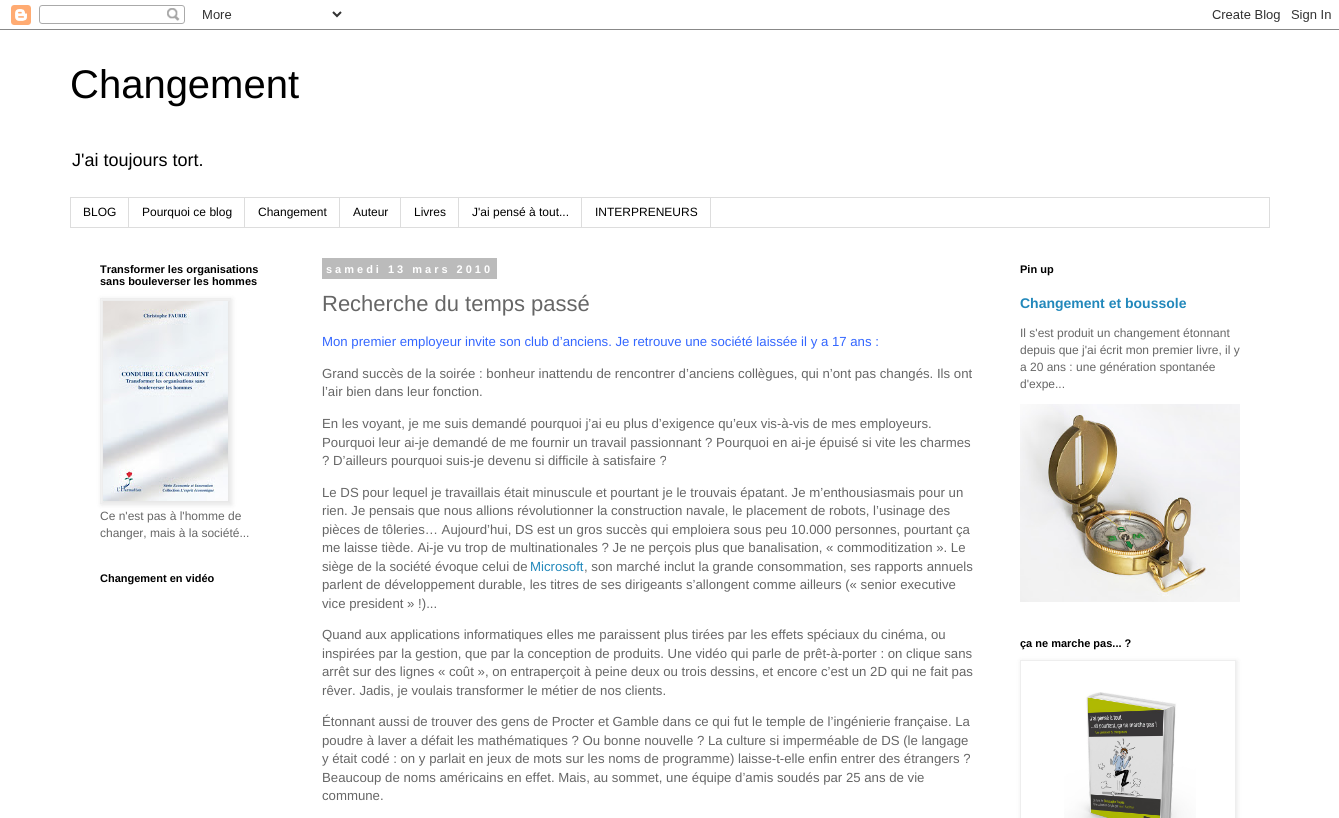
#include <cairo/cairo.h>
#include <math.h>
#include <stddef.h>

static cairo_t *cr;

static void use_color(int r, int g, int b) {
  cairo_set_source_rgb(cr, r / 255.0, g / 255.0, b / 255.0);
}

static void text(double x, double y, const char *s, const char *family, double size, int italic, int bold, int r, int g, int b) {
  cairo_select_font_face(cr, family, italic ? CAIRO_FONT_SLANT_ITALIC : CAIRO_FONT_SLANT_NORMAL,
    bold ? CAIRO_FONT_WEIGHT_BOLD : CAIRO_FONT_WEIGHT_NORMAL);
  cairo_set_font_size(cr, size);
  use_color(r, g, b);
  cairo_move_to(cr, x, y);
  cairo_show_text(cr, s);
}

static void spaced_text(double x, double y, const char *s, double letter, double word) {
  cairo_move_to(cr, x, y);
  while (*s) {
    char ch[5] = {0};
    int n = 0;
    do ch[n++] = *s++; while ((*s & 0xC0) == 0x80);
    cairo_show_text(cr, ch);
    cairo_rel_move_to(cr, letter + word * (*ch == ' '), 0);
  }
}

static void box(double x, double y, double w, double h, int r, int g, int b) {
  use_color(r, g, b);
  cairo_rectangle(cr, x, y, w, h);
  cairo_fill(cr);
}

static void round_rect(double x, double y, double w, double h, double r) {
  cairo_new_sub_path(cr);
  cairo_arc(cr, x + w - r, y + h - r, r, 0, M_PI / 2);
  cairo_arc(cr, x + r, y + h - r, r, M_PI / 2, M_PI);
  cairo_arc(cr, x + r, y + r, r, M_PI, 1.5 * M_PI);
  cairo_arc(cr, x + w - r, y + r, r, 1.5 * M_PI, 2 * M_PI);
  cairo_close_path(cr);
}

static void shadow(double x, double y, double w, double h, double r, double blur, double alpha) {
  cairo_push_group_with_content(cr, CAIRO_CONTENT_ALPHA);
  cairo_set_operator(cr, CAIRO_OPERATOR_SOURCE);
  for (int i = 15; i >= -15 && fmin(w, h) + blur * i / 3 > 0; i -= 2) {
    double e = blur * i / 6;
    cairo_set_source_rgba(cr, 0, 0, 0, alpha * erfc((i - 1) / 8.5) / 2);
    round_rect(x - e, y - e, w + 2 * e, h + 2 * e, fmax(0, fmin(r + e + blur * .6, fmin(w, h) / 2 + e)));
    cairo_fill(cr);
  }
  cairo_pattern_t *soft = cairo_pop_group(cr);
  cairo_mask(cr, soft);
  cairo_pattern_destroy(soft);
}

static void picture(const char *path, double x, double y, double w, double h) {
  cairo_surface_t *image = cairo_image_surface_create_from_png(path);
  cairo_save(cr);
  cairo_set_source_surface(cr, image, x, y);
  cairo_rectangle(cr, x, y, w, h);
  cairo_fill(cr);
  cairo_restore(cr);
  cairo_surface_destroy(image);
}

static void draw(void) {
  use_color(255, 255, 255);
  cairo_paint(cr);
  picture("img_01.png", 0, 5, 1339, 25);
  cairo_rectangle(cr, 70.5, 197.5, 1199, 30);
  use_color(221, 221, 221);
  cairo_set_line_width(cr, 1);
  cairo_stroke(cr);
  box(128, 198, 1, 29, 221, 221, 221);
  box(244, 198, 1, 29, 221, 221, 221);
  box(339, 198, 1, 29, 221, 221, 221);
  box(400, 198, 1, 29, 221, 221, 221);
  box(458, 198, 1, 29, 221, 221, 221);
  box(581, 198, 1, 29, 221, 221, 221);
  box(710, 198, 1, 29, 221, 221, 221);
  use_color(0, 0, 0);
  shadow(101, 299, 131, 206, 0, 2.5, 0.1);
  cairo_rectangle(cr, 100.5, 298.5, 130, 205);
  use_color(238, 238, 238);
  cairo_stroke(cr);
  picture("img_02.png", 103, 301, 125, 200);
  box(322, 258, 175, 21, 187, 187, 187);
  picture("img_03.png", 1020, 404, 220, 198);
  cairo_save(cr);
  cairo_set_fill_rule(cr, CAIRO_FILL_RULE_EVEN_ODD);
  cairo_new_path(cr);
  cairo_move_to(cr, 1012, 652);
  cairo_line_to(cr, 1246, 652);
  cairo_line_to(cr, 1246, 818);
  cairo_line_to(cr, 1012, 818);
  cairo_close_path(cr);
  cairo_move_to(cr, 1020, 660);
  cairo_line_to(cr, 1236, 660);
  cairo_line_to(cr, 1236, 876);
  cairo_line_to(cr, 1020, 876);
  cairo_close_path(cr);
  cairo_clip(cr);
  use_color(0, 0, 0);
  shadow(1021, 661, 216, 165, 0, 2.5, 0.1);
  cairo_restore(cr);
  cairo_rectangle(cr, 1020.5, 660.5, 215, 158);
  use_color(238, 238, 238);
  cairo_stroke(cr);
  picture("img_04.png", 1064, 692, 132, 126);
  text(70, 98, "Changement", "Liberation Sans", 40, 0, 0, 0, 0, 0);
  text(72, 166, "J'ai toujours tort.", "Liberation Sans", 18, 0, 0, 0, 0, 0);
  text(83, 216, "BLOG", "Liberation Sans", 12, 0, 0, 0, 0, 0);
  text(142, 216, "Pourquoi ce blog", "Liberation Sans", 12, 0, 0, 0, 0, 0);
  text(258, 216, "Changement", "Liberation Sans", 12, 0, 0, 0, 0, 0);
  text(353, 216, "Auteur", "Liberation Sans", 12, 0, 0, 0, 0, 0);
  text(414, 216, "Livres", "Liberation Sans", 12, 0, 0, 0, 0, 0);
  text(472, 216, "J'ai pensé à tout...", "Liberation Sans", 12, 0, 0, 0, 0, 0);
  text(595, 216, "INTERPRENEURS", "Liberation Sans", 12, 0, 0, 0, 0, 0);
  text(100, 273, "Transformer les organisations", "Liberation Sans", 11, 0, 1, 0, 0, 0);
  text(100, 285, "sans bouleverser les hommes", "Liberation Sans", 11, 0, 1, 0, 0, 0);
  text(100, 520, "Ce n'est pas à l'homme de", "Liberation Sans", 12, 0, 0, 102, 102, 102);
  text(100, 537, "changer, mais à la société...", "Liberation Sans", 12, 0, 0, 102, 102, 102);
  text(100, 582, "Changement en vidéo", "Liberation Sans", 11, 0, 1, 0, 0, 0);
  use_color(255, 255, 255);
  spaced_text(326, 273, "samedi 13 mars 2010", 3, 0);
  text(322, 311, "Recherche du temps passé", "Liberation Sans", 22, 0, 0, 102, 102, 102);
  text(322, 346, "Mon premier employeur invite son club d’anciens. Je retrouve une société laissée il y a 17 ans :", "Liberation Sans", 13.2, 0, 0, 51, 102, 255);
  text(322, 378, "Grand succès de la soirée : bonheur inattendu de rencontrer d’anciens collègues, qui n’ont pas changés. Ils ont", "Liberation Sans", 13.2, 0, 0, 102, 102, 102);
  text(322, 396, "l’air bien dans leur fonction.", "Liberation Sans", 13.2, 0, 0, 102, 102, 102);
  text(322, 428, "En les voyant, je me suis demandé pourquoi j’ai eu plus d’exigence qu’eux vis-à-vis de mes employeurs.", "Liberation Sans", 13.2, 0, 0, 102, 102, 102);
  text(322, 447, "Pourquoi leur ai-je demandé de me fournir un travail passionnant ? Pourquoi en ai-je épuisé si vite les charmes", "Liberation Sans", 13.2, 0, 0, 102, 102, 102);
  text(322, 465, "? D’ailleurs pourquoi suis-je devenu si difficile à satisfaire ?", "Liberation Sans", 13.2, 0, 0, 102, 102, 102);
  text(322, 497, "Le DS pour lequel je travaillais était minuscule et pourtant je le trouvais épatant. Je m’enthousiasmais pour un", "Liberation Sans", 13.2, 0, 0, 102, 102, 102);
  text(322, 515, "rien. Je pensais que nous allions révolutionner la construction navale, le placement de robots, l’usinage des", "Liberation Sans", 13.2, 0, 0, 102, 102, 102);
  text(322, 534, "pièces de tôleries… Aujourd’hui, DS est un gros succès qui emploiera sous peu 10.000 personnes, pourtant ça", "Liberation Sans", 13.2, 0, 0, 102, 102, 102);
  text(322, 552, "me laisse tiède. Ai-je vu trop de multinationales ? Je ne perçois plus que banalisation, « commoditization ». Le", "Liberation Sans", 13.2, 0, 0, 102, 102, 102);
  text(322, 571, "siège de la société évoque celui de", "Liberation Sans", 13.2, 0, 0, 102, 102, 102);
  text(530, 571, "Microsoft", "Liberation Sans", 13.2, 0, 0, 34, 136, 187);
  text(584, 571, ", son marché inclut la grande consommation, ses rapports annuels", "Liberation Sans", 13.2, 0, 0, 102, 102, 102);
  text(322, 589, "parlent de développement durable, les titres de ses dirigeants s’allongent comme ailleurs (« senior executive", "Liberation Sans", 13.2, 0, 0, 102, 102, 102);
  text(322, 608, "vice president » !)...", "Liberation Sans", 13.2, 0, 0, 102, 102, 102);
  text(322, 639, "Quand aux applications informatiques elles me paraissent plus tirées par les effets spéciaux du cinéma, ou", "Liberation Sans", 13.2, 0, 0, 102, 102, 102);
  text(322, 658, "inspirées par la gestion, que par la conception de produits. Une vidéo qui parle de prêt-à-porter : on clique sans", "Liberation Sans", 13.2, 0, 0, 102, 102, 102);
  text(322, 676, "arrêt sur des lignes « coût », on entraperçoit à peine deux ou trois dessins, et encore c’est un 2D qui ne fait pas", "Liberation Sans", 13.2, 0, 0, 102, 102, 102);
  text(322, 695, "rêver. Jadis, je voulais transformer le métier de nos clients.", "Liberation Sans", 13.2, 0, 0, 102, 102, 102);
  text(322, 726, "Étonnant aussi de trouver des gens de Procter et Gamble dans ce qui fut le temple de l’ingénierie française. La", "Liberation Sans", 13.2, 0, 0, 102, 102, 102);
  text(322, 745, "poudre à laver a défait les mathématiques ? Ou bonne nouvelle ? La culture si imperméable de DS (le langage", "Liberation Sans", 13.2, 0, 0, 102, 102, 102);
  text(322, 763, "y était codé : on y parlait en jeux de mots sur les noms de programme) laisse-t-elle enfin entrer des étrangers ?", "Liberation Sans", 13.2, 0, 0, 102, 102, 102);
  text(322, 782, "Beaucoup de noms américains en effet. Mais, au sommet, une équipe d’amis soudés par 25 ans de vie", "Liberation Sans", 13.2, 0, 0, 102, 102, 102);
  text(322, 800, "commune.", "Liberation Sans", 13.2, 0, 0, 102, 102, 102);
  text(1020, 273, "Pin up", "Liberation Sans", 11, 0, 1, 0, 0, 0);
  text(1020, 308, "Changement et boussole", "Liberation Sans", 14, 0, 1, 34, 136, 187);
  text(1020, 337, "Il s'est produit un changement étonnant", "Liberation Sans", 12, 0, 0, 102, 102, 102);
  text(1020, 354, "depuis que j'ai écrit mon premier livre, il y", "Liberation Sans", 12, 0, 0, 102, 102, 102);
  text(1020, 371, "a 20 ans : une génération spontanée", "Liberation Sans", 12, 0, 0, 102, 102, 102);
  text(1020, 388, "d'expe...", "Liberation Sans", 12, 0, 0, 102, 102, 102);
  text(1020, 647, "ça ne marche pas... ?", "Liberation Sans", 11, 0, 1, 0, 0, 0);
}

int main(void) {
  cairo_surface_t *surface = cairo_image_surface_create(CAIRO_FORMAT_RGB24, 1339, 818);
  cr = cairo_create(surface);
  cairo_font_options_t *options = cairo_font_options_create();
  cairo_font_options_set_hint_metrics(options, CAIRO_HINT_METRICS_OFF);
  cairo_font_options_set_hint_style(options, CAIRO_HINT_STYLE_NONE);
  cairo_set_font_options(cr, options);
  cairo_set_miter_limit(cr, 4);
  draw();
  cairo_surface_write_to_png(surface, "out.png");
  cairo_font_options_destroy(options);
  cairo_destroy(cr);
  cairo_surface_destroy(surface);
  return 0;
}
